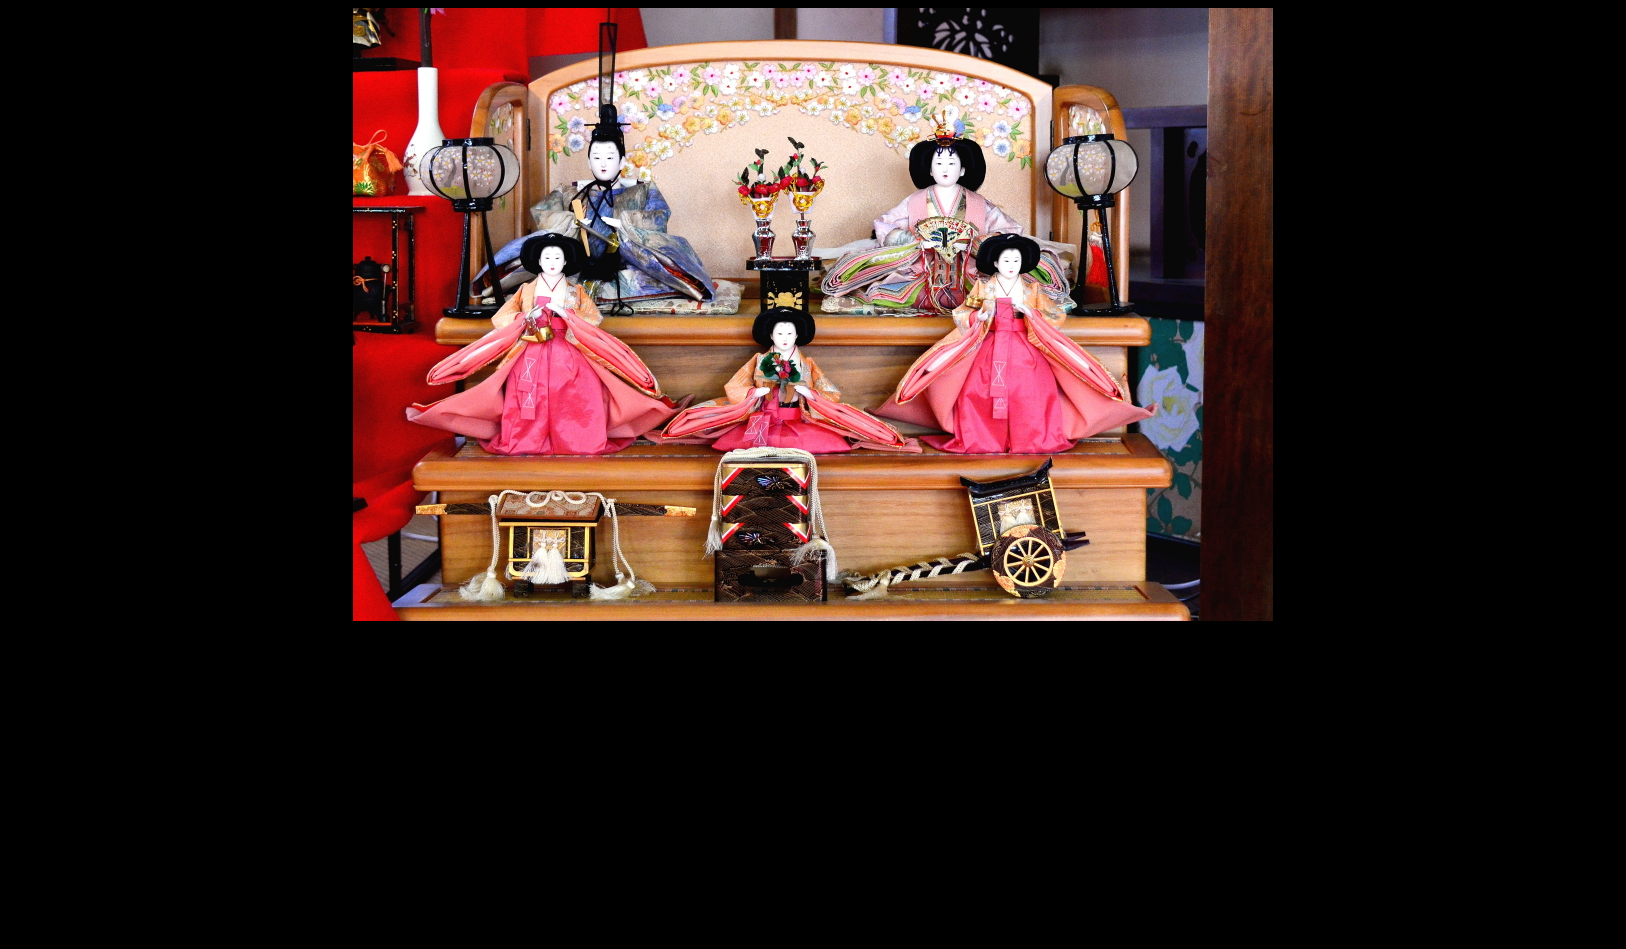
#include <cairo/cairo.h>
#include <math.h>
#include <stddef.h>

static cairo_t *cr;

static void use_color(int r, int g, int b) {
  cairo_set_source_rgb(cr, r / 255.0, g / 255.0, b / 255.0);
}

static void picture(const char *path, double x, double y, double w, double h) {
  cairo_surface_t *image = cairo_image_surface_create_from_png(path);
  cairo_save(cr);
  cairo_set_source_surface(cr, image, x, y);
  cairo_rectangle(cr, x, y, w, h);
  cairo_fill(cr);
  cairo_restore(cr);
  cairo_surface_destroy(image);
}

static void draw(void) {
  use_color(0, 0, 0);
  cairo_paint(cr);
  picture("img_01.png", 353, 8, 920, 613);
}

int main(void) {
  cairo_surface_t *surface = cairo_image_surface_create(CAIRO_FORMAT_RGB24, 1626, 949);
  cr = cairo_create(surface);
  cairo_font_options_t *options = cairo_font_options_create();
  cairo_font_options_set_hint_metrics(options, CAIRO_HINT_METRICS_OFF);
  cairo_font_options_set_hint_style(options, CAIRO_HINT_STYLE_NONE);
  cairo_set_font_options(cr, options);
  cairo_set_miter_limit(cr, 4);
  draw();
  cairo_surface_write_to_png(surface, "out.png");
  cairo_font_options_destroy(options);
  cairo_destroy(cr);
  cairo_surface_destroy(surface);
  return 0;
}
